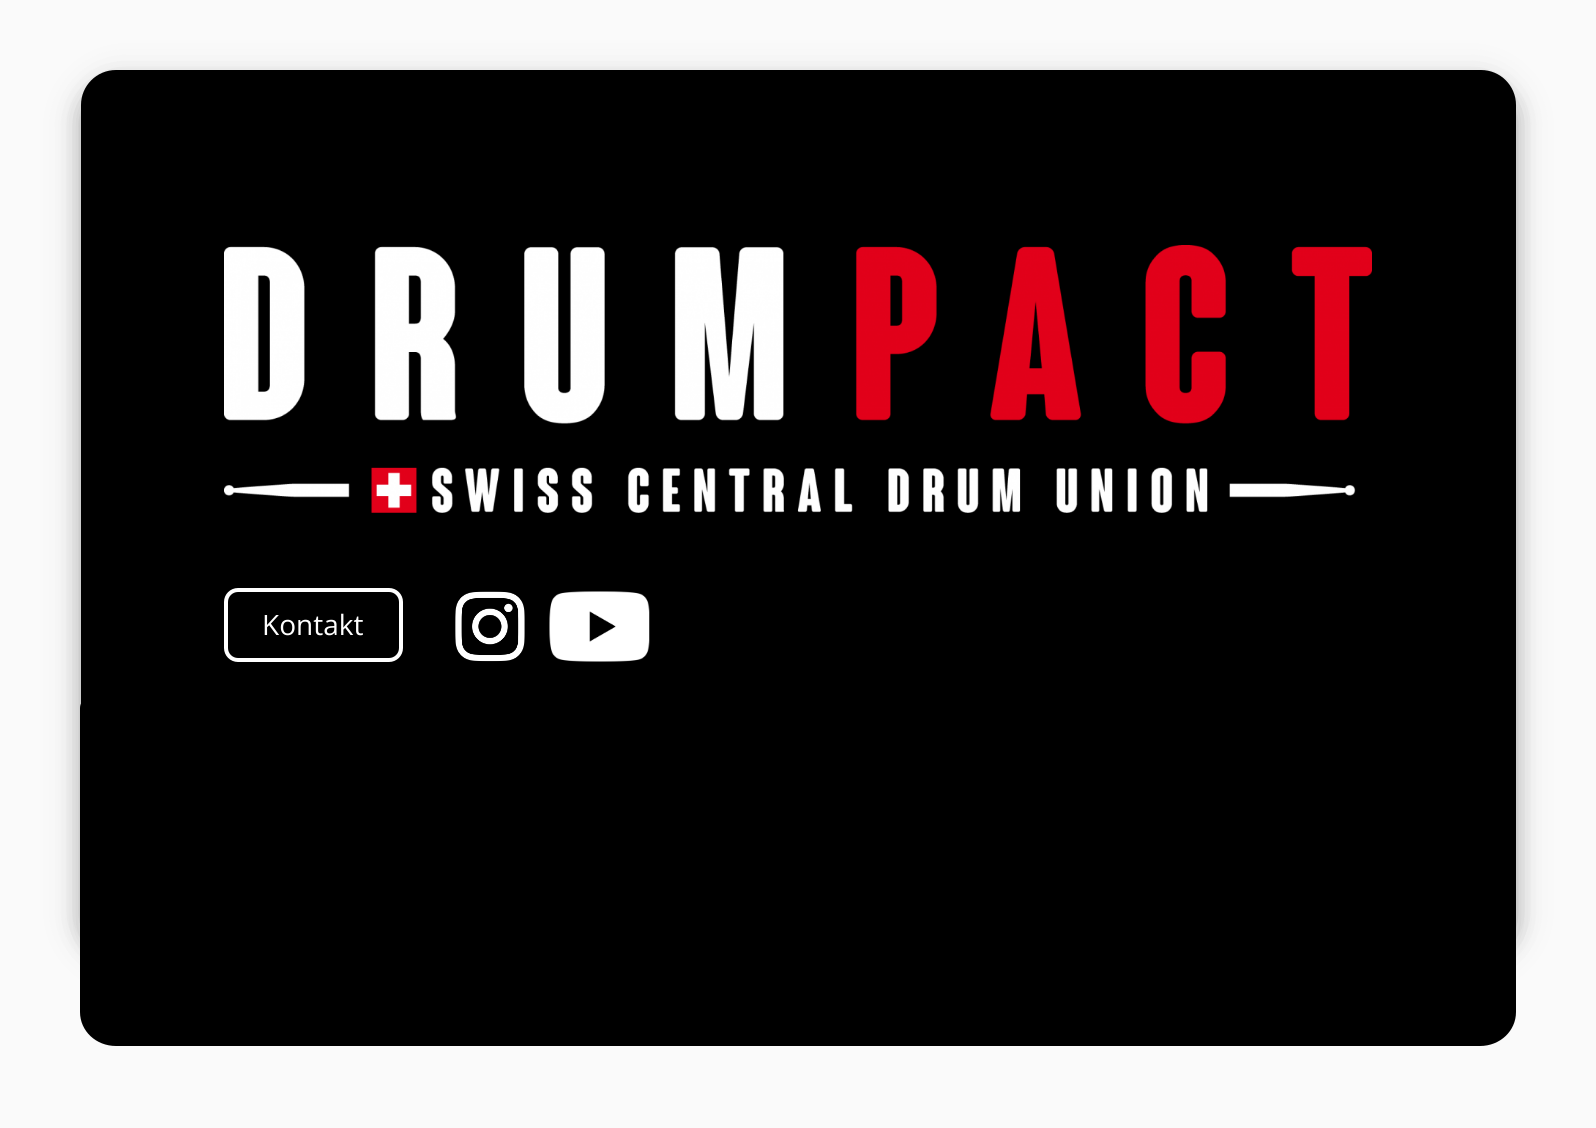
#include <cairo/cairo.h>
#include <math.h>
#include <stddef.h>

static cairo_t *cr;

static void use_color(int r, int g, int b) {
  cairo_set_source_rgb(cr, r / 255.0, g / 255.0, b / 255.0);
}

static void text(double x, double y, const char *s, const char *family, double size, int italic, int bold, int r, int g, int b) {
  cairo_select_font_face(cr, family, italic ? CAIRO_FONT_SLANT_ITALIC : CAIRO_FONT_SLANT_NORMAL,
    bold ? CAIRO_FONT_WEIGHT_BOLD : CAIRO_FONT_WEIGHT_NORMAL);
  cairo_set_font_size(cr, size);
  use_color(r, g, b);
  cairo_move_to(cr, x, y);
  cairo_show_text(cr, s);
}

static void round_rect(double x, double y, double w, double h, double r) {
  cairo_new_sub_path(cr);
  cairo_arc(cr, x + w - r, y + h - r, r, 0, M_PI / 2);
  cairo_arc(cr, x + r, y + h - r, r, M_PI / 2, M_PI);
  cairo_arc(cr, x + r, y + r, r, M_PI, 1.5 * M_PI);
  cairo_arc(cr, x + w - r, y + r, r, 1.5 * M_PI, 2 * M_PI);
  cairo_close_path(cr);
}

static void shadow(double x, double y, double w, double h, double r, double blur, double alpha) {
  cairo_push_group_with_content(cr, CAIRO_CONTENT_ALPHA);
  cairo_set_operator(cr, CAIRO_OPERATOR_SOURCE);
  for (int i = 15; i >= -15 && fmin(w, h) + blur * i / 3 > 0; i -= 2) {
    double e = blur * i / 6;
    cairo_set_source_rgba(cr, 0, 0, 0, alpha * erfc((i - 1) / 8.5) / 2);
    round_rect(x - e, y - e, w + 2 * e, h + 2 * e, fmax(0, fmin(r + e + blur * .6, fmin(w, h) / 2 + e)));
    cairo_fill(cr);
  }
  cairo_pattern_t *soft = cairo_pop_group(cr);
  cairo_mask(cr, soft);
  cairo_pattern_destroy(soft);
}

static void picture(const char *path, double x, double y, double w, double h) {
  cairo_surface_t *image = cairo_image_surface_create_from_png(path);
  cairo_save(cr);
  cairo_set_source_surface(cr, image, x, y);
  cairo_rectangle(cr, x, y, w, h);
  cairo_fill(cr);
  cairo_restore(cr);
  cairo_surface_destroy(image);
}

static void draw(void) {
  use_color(250, 250, 250);
  cairo_paint(cr);
  use_color(0, 0, 0);
  shadow(81, 81, 1435, 875, 35, 17.5, 0.19);
  shadow(81, 84, 1435, 875, 35, 10.5, 0.2);
  use_color(0, 0, 0);
  round_rect(81, 70, 1435, 875, 35);
  cairo_fill(cr);
  picture("img_01.png", 224, 245, 1148, 268);
  round_rect(226, 590, 175, 70, 12);
  use_color(255, 255, 255);
  cairo_set_line_width(cr, 4);
  cairo_stroke(cr);
  picture("img_02.png", 455, 591, 70, 71);
  picture("img_03.png", 549, 591, 101, 71);
  use_color(0, 0, 0);
  cairo_new_path(cr);
  cairo_move_to(cr, 224, 670);
  cairo_line_to(cr, 1480, 670);
  cairo_curve_to(cr, 1500, 670, 1516, 686, 1516, 705);
  cairo_line_to(cr, 1516, 1012);
  cairo_curve_to(cr, 1516, 1031, 1500, 1046, 1480, 1046);
  cairo_line_to(cr, 116, 1046);
  cairo_curve_to(cr, 96, 1046, 80, 1031, 80, 1012);
  cairo_line_to(cr, 80, 708);
  cairo_curve_to(cr, 80, 687, 145, 670, 224, 670);
  cairo_close_path(cr);
  cairo_fill(cr);
  text(262, 635, "Kontakt", "Open Sans", 28, 0, 0, 255, 255, 255);
}

int main(void) {
  cairo_surface_t *surface = cairo_image_surface_create(CAIRO_FORMAT_RGB24, 1596, 1128);
  cr = cairo_create(surface);
  cairo_font_options_t *options = cairo_font_options_create();
  cairo_font_options_set_hint_metrics(options, CAIRO_HINT_METRICS_OFF);
  cairo_font_options_set_hint_style(options, CAIRO_HINT_STYLE_NONE);
  cairo_set_font_options(cr, options);
  cairo_set_miter_limit(cr, 4);
  draw();
  cairo_surface_write_to_png(surface, "out.png");
  cairo_font_options_destroy(options);
  cairo_destroy(cr);
  cairo_surface_destroy(surface);
  return 0;
}
